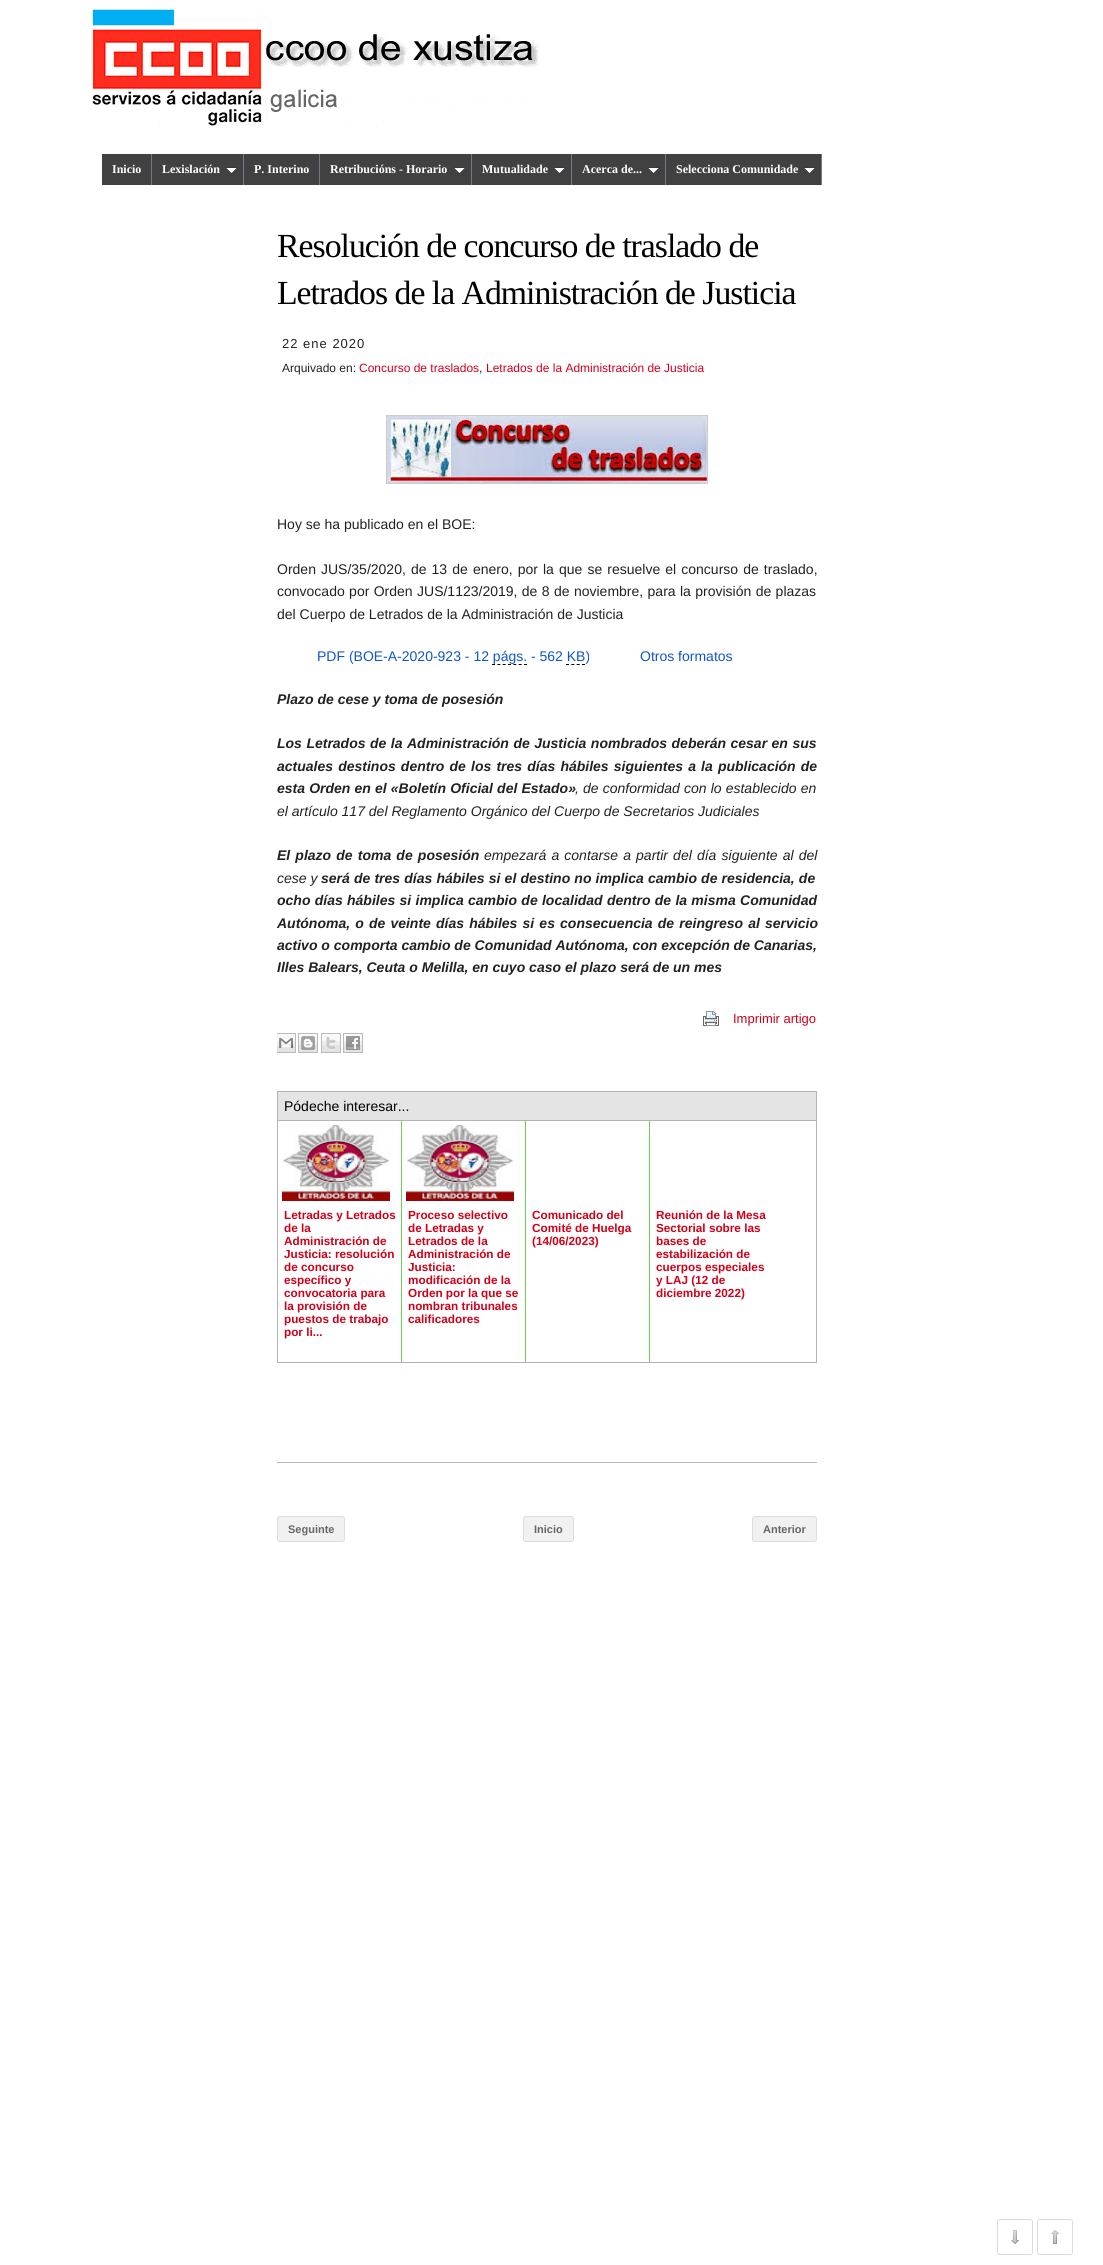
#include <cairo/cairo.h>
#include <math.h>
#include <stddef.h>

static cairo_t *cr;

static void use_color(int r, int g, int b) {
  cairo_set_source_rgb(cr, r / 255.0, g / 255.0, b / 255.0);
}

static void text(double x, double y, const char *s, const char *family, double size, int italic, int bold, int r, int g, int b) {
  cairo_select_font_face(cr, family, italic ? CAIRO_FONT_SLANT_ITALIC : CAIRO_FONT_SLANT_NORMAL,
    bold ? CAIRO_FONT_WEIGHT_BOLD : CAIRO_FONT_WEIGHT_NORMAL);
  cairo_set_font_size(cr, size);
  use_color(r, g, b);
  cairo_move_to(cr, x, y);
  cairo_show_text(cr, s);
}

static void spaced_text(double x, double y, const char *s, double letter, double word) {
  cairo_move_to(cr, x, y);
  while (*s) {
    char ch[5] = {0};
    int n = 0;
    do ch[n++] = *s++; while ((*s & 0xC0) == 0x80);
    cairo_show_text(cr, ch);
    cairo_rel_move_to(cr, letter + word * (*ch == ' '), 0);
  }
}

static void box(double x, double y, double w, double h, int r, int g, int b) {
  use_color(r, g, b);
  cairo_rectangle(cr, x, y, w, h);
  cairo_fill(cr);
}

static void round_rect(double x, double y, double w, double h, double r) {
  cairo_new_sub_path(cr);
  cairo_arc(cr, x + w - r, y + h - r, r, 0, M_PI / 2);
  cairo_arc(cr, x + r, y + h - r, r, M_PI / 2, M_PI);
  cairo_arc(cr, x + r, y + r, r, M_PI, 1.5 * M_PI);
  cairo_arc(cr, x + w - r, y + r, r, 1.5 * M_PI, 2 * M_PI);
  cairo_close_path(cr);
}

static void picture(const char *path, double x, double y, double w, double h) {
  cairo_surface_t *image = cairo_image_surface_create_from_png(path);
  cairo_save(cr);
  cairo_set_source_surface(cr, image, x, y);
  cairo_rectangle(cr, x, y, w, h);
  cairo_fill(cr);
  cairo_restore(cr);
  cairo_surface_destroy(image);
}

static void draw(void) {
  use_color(255, 255, 255);
  cairo_paint(cr);
  picture("img_01.png", 92, 9, 448, 117);
  box(102, 154, 49, 31, 65, 65, 65);
  box(151, 154, 1, 31, 119, 119, 136);
  box(152, 154, 91, 31, 65, 65, 65);
  box(243, 154, 1, 31, 119, 119, 136);
  picture("img_02.png", 226, 167, 11, 7);
  box(244, 154, 75, 31, 65, 65, 65);
  box(319, 154, 1, 31, 119, 119, 136);
  box(320, 154, 151, 31, 65, 65, 65);
  box(471, 154, 1, 31, 119, 119, 136);
  picture("img_02.png", 454, 167, 11, 7);
  box(472, 154, 99, 31, 65, 65, 65);
  box(571, 154, 1, 31, 119, 119, 136);
  picture("img_02.png", 554, 167, 11, 7);
  box(572, 154, 93, 31, 65, 65, 65);
  box(665, 154, 1, 31, 119, 119, 136);
  picture("img_02.png", 648, 167, 11, 7);
  box(666, 154, 155, 31, 65, 65, 65);
  box(821, 154, 1, 31, 119, 119, 136);
  picture("img_02.png", 804, 167, 11, 7);
  cairo_rectangle(cr, 386.5, 415.5, 321, 68);
  use_color(204, 204, 204);
  cairo_set_line_width(cr, 1);
  cairo_stroke(cr);
  picture("img_03.png", 387, 416, 320, 67);
  cairo_new_path(cr);
  cairo_move_to(cr, 492, 664.5);
  cairo_line_to(cr, 527, 664.5);
  use_color(0, 0, 0);
  cairo_set_dash(cr, (double[]){3, 2.33}, 2, 0);
  cairo_stroke(cr);
  cairo_new_path(cr);
  cairo_move_to(cr, 566, 664.5);
  cairo_line_to(cr, 585, 664.5);
  cairo_stroke(cr);
  picture("img_04.png", 703, 1011, 16, 15);
  picture("img_05.png", 277, 1033, 19, 20);
  picture("img_06.png", 298, 1033, 20, 20);
  picture("img_07.png", 321, 1033, 20, 20);
  picture("img_08.png", 343, 1033, 20, 20);
  cairo_rectangle(cr, 277.5, 1091.5, 539, 271);
  use_color(179, 179, 179);
  cairo_set_dash(cr, NULL, 0, 0);
  cairo_stroke(cr);
  box(278, 1092, 538, 28, 228, 228, 228);
  box(278, 1120, 538, 1, 179, 179, 179);
  picture("img_09.png", 282, 1125, 108, 76);
  box(401, 1121, 1, 241, 110, 207, 89);
  picture("img_10.png", 406, 1125, 108, 76);
  box(525, 1121, 1, 241, 110, 207, 89);
  box(649, 1121, 1, 241, 110, 207, 89);
  box(277, 1462, 540, 1, 187, 187, 187);
  use_color(241, 241, 241);
  round_rect(277.5, 1516.5, 67, 25, 2.5);
  cairo_fill_preserve(cr);
  use_color(221, 221, 221);
  cairo_stroke(cr);
  use_color(241, 241, 241);
  round_rect(523.5, 1516.5, 50, 25, 2.5);
  cairo_fill_preserve(cr);
  use_color(221, 221, 221);
  cairo_stroke(cr);
  use_color(241, 241, 241);
  round_rect(752.5, 1516.5, 64, 25, 2.5);
  cairo_fill_preserve(cr);
  use_color(221, 221, 221);
  cairo_stroke(cr);
  picture("img_11.png", 1011, 2230, 8, 14);
  round_rect(997.5, 2219.5, 35, 35, 2.5);
  use_color(219, 219, 219);
  cairo_stroke(cr);
  picture("img_12.png", 1051, 2230, 8, 14);
  round_rect(1037.5, 2219.5, 35, 35, 2.5);
  cairo_stroke(cr);
  text(112, 173, "Inicio", "Liberation Serif", 12, 0, 1, 255, 255, 255);
  text(162, 173, "Lexislación", "Liberation Serif", 12, 0, 1, 255, 255, 255);
  text(254, 173, "P. Interino", "Liberation Serif", 12, 0, 1, 255, 255, 255);
  text(330, 173, "Retribucións - Horario", "Liberation Serif", 12, 0, 1, 255, 255, 255);
  text(482, 173, "Mutualidade", "Liberation Serif", 12, 0, 1, 255, 255, 255);
  text(582, 173, "Acerca de...", "Liberation Serif", 12, 0, 1, 255, 255, 255);
  text(676, 173, "Selecciona Comunidade", "Liberation Serif", 12, 0, 1, 255, 255, 255);
  cairo_select_font_face(cr, "Liberation Serif", CAIRO_FONT_SLANT_NORMAL, CAIRO_FONT_WEIGHT_NORMAL);
  cairo_set_font_size(cr, 33.75);
  use_color(0, 0, 0);
  spaced_text(277, 257, "Resolución de concurso de traslado de", -1, 0);
  spaced_text(277, 304, "Letrados de la Administración de Justicia", -1, 0);
  cairo_select_font_face(cr, "Liberation Sans", CAIRO_FONT_SLANT_NORMAL, CAIRO_FONT_WEIGHT_NORMAL);
  cairo_set_font_size(cr, 13);
  use_color(34, 34, 34);
  spaced_text(282, 348, "22 ene 2020", 1, 0);
  text(282, 372, "Arquivado en:", "Liberation Sans", 12, 0, 0, 34, 34, 34);
  text(359, 372, "Concurso de traslados", "Liberation Sans", 12, 0, 0, 209, 0, 25);
  text(479, 372, ",", "Liberation Sans", 12, 0, 0, 34, 34, 34);
  text(486, 372, "Letrados de la Administración de Justicia", "Liberation Sans", 12, 0, 0, 209, 0, 25);
  text(277, 529, "Hoy se ha publicado en el BOE:", "Liberation Sans", 14, 0, 0, 34, 34, 34);
  spaced_text(277, 574, "Orden JUS/35/2020, de 13 de enero, por la que se resuelve el concurso de traslado,", 0, 1.2);
  spaced_text(277, 596, "convocado por Orden JUS/1123/2019, de 8 de noviembre, para la provisión de plazas", 0, 0.5);
  text(277, 619, "del Cuerpo de Letrados de la Administración de Justicia", "Liberation Sans", 14, 0, 0, 34, 34, 34);
  text(317, 661, "PDF (BOE-A-2020-923 - 12 págs. - 562 KB)", "Liberation Sans", 14, 0, 0, 17, 85, 204);
  text(640, 661, "Otros formatos", "Liberation Sans", 14, 0, 0, 17, 85, 204);
  text(277, 704, "Plazo de cese y toma de posesión", "Liberation Sans", 14, 1, 1, 34, 34, 34);
  spaced_text(277, 748, "Los Letrados de la Administración de Justicia nombrados deberán cesar en sus", 0, 0.6);
  spaced_text(277, 771, "actuales destinos dentro de los tres días hábiles siguientes a la publicación de", 0, 1.25);
  spaced_text(277, 793, "esta Orden en el «Boletín Oficial del Estado»", 0, 0.25);
  cairo_select_font_face(cr, "Liberation Sans", CAIRO_FONT_SLANT_ITALIC, CAIRO_FONT_WEIGHT_NORMAL);
  spaced_text(575, 793, ", de conformidad con lo establecido en", 0, 0.25);
  text(277, 816, "el artículo 117 del Reglamento Orgánico del Cuerpo de Secretarios Judiciales", "Liberation Sans", 14, 1, 0, 34, 34, 34);
  cairo_select_font_face(cr, "Liberation Sans", CAIRO_FONT_SLANT_ITALIC, CAIRO_FONT_WEIGHT_BOLD);
  spaced_text(277, 860, "El plazo de toma de posesión", 0, 1.25);
  cairo_select_font_face(cr, "Liberation Sans", CAIRO_FONT_SLANT_ITALIC, CAIRO_FONT_WEIGHT_NORMAL);
  spaced_text(484, 860, "empezará a contarse a partir del día siguiente al del", 0, 1.25);
  text(277, 883, "cese y", "Liberation Sans", 14, 1, 0, 34, 34, 34);
  cairo_select_font_face(cr, "Liberation Sans", CAIRO_FONT_SLANT_ITALIC, CAIRO_FONT_WEIGHT_BOLD);
  spaced_text(321, 883, "será de tres días hábiles si el destino no implica cambio de residencia, de", 0, 0.25);
  spaced_text(277, 905, "ocho días hábiles si implica cambio de localidad dentro de la misma Comunidad", 0, 0.4);
  spaced_text(277, 928, "Autónoma, o de veinte días hábiles si es consecuencia de reingreso al servicio", 0, 1.25);
  text(277, 950, "activo o comporta cambio de Comunidad Autónoma, con excepción de Canarias,", "Liberation Sans", 14, 1, 1, 34, 34, 34);
  text(277, 972, "Illes Balears, Ceuta o Melilla, en cuyo caso el plazo será de un mes", "Liberation Sans", 14, 1, 1, 34, 34, 34);
  text(733, 1023, "Imprimir artigo", "Liberation Sans", 13, 0, 0, 209, 0, 25);
  text(284, 1111, "Pódeche interesar...", "Liberation Sans", 14, 0, 0, 0, 0, 0);
  text(284, 1219, "Letradas y Letrados", "Liberation Sans", 11.75, 0, 1, 209, 0, 25);
  text(284, 1232, "de la", "Liberation Sans", 11.75, 0, 1, 209, 0, 25);
  text(284, 1245, "Administración de", "Liberation Sans", 11.75, 0, 1, 209, 0, 25);
  text(284, 1258, "Justicia: resolución", "Liberation Sans", 11.75, 0, 1, 209, 0, 25);
  text(284, 1271, "de concurso", "Liberation Sans", 11.75, 0, 1, 209, 0, 25);
  text(284, 1284, "específico y", "Liberation Sans", 11.75, 0, 1, 209, 0, 25);
  text(284, 1297, "convocatoria para", "Liberation Sans", 11.75, 0, 1, 209, 0, 25);
  text(284, 1310, "la provisión de", "Liberation Sans", 11.75, 0, 1, 209, 0, 25);
  text(284, 1323, "puestos de trabajo", "Liberation Sans", 11.75, 0, 1, 209, 0, 25);
  text(284, 1336, "por li...", "Liberation Sans", 11.75, 0, 1, 209, 0, 25);
  text(408, 1219, "Proceso selectivo", "Liberation Sans", 11.75, 0, 1, 209, 0, 25);
  text(408, 1232, "de Letradas y", "Liberation Sans", 11.75, 0, 1, 209, 0, 25);
  text(408, 1245, "Letrados de la", "Liberation Sans", 11.75, 0, 1, 209, 0, 25);
  text(408, 1258, "Administración de", "Liberation Sans", 11.75, 0, 1, 209, 0, 25);
  text(408, 1271, "Justicia:", "Liberation Sans", 11.75, 0, 1, 209, 0, 25);
  text(408, 1284, "modificación de la", "Liberation Sans", 11.75, 0, 1, 209, 0, 25);
  text(408, 1297, "Orden por la que se", "Liberation Sans", 11.75, 0, 1, 209, 0, 25);
  text(408, 1310, "nombran tribunales", "Liberation Sans", 11.75, 0, 1, 209, 0, 25);
  text(408, 1323, "calificadores", "Liberation Sans", 11.75, 0, 1, 209, 0, 25);
  text(532, 1219, "Comunicado del", "Liberation Sans", 11.75, 0, 1, 209, 0, 25);
  text(532, 1232, "Comité de Huelga", "Liberation Sans", 11.75, 0, 1, 209, 0, 25);
  text(532, 1245, "(14/06/2023)", "Liberation Sans", 11.75, 0, 1, 209, 0, 25);
  text(656, 1219, "Reunión de la Mesa", "Liberation Sans", 11.75, 0, 1, 209, 0, 25);
  text(656, 1232, "Sectorial sobre las", "Liberation Sans", 11.75, 0, 1, 209, 0, 25);
  text(656, 1245, "bases de", "Liberation Sans", 11.75, 0, 1, 209, 0, 25);
  text(656, 1258, "estabilización de", "Liberation Sans", 11.75, 0, 1, 209, 0, 25);
  text(656, 1271, "cuerpos especiales", "Liberation Sans", 11.75, 0, 1, 209, 0, 25);
  text(656, 1284, "y LAJ (12 de", "Liberation Sans", 11.75, 0, 1, 209, 0, 25);
  text(656, 1297, "diciembre 2022)", "Liberation Sans", 11.75, 0, 1, 209, 0, 25);
  text(288, 1533, "Seguinte", "Liberation Sans", 11, 0, 1, 102, 102, 102);
  text(534, 1533, "Inicio", "Liberation Sans", 11, 0, 1, 102, 102, 102);
  text(763, 1533, "Anterior", "Liberation Sans", 11, 0, 1, 102, 102, 102);
}

int main(void) {
  cairo_surface_t *surface = cairo_image_surface_create(CAIRO_FORMAT_RGB24, 1103, 2265);
  cr = cairo_create(surface);
  cairo_font_options_t *options = cairo_font_options_create();
  cairo_font_options_set_hint_metrics(options, CAIRO_HINT_METRICS_OFF);
  cairo_font_options_set_hint_style(options, CAIRO_HINT_STYLE_NONE);
  cairo_set_font_options(cr, options);
  cairo_set_miter_limit(cr, 4);
  draw();
  cairo_surface_write_to_png(surface, "out.png");
  cairo_font_options_destroy(options);
  cairo_destroy(cr);
  cairo_surface_destroy(surface);
  return 0;
}
